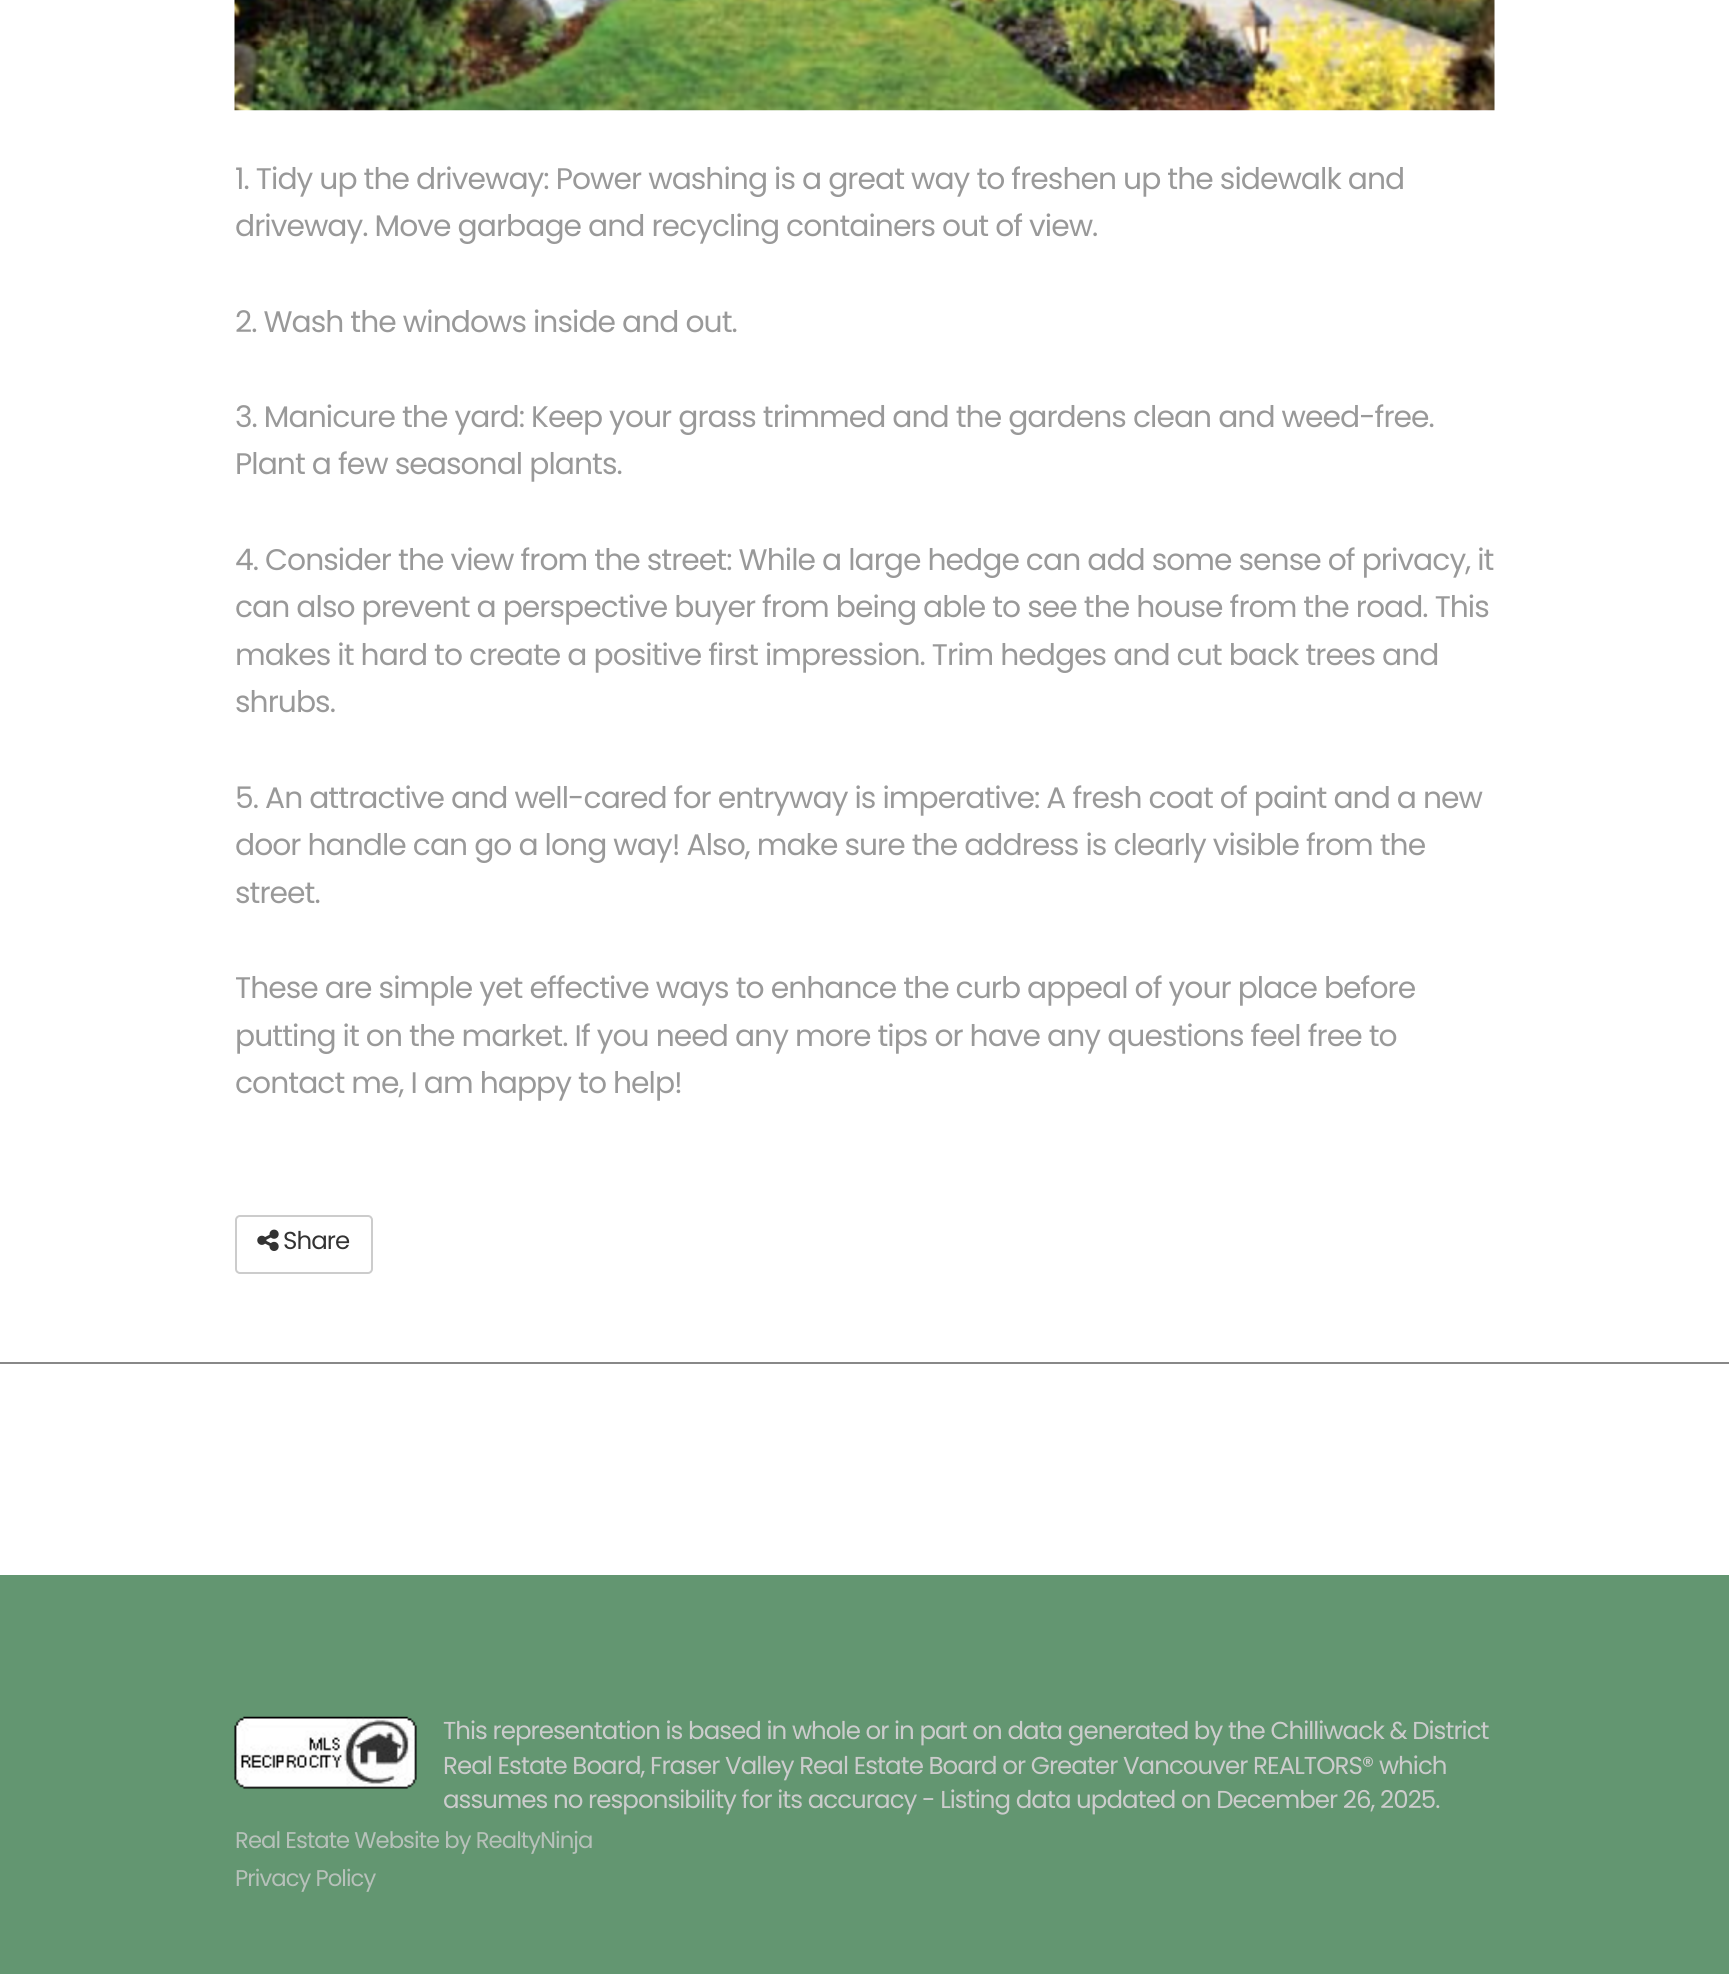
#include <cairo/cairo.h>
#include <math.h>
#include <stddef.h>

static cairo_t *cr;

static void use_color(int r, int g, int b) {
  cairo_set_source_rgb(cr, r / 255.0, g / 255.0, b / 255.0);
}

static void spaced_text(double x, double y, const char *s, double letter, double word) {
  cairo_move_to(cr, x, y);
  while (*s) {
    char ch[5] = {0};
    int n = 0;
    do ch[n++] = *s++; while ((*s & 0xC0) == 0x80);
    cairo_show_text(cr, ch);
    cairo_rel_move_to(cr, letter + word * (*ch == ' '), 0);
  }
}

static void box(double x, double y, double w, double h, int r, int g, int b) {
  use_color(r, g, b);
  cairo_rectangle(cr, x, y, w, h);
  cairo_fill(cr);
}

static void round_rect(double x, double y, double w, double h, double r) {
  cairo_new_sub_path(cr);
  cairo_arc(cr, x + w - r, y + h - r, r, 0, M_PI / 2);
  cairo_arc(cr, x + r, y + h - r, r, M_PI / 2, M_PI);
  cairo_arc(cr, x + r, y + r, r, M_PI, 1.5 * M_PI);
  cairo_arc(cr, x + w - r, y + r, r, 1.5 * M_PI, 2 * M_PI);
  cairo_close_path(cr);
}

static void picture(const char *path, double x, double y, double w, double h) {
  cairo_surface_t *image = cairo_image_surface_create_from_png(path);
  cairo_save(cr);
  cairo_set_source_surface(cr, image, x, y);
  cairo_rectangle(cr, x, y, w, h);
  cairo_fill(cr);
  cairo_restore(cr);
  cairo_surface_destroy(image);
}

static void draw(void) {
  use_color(255, 255, 255);
  cairo_paint(cr);
  picture("img_01.png", 234, 0, 1261, 111);
  round_rect(236, 1216, 136, 57, 4);
  use_color(204, 204, 204);
  cairo_stroke(cr);
  picture("img_02.png", 257, 1229, 22, 22);
  box(0, 1362, 1729, 2, 136, 136, 136);
  box(0, 1575, 1729, 399, 99, 150, 113);
  picture("img_03.png", 234, 1716, 183, 73);
  cairo_select_font_face(cr, "Poppins", CAIRO_FONT_SLANT_NORMAL, CAIRO_FONT_WEIGHT_NORMAL);
  cairo_set_font_size(cr, 29.75);
  use_color(153, 153, 153);
  spaced_text(235, 189, "1. Tidy up the driveway: Power washing is a great way to freshen up the sidewalk and", -0.95, 0);
  spaced_text(235, 236, "driveway. Move garbage and recycling containers out of view.", -0.95, 0);
  spaced_text(235, 332, "2. Wash the windows inside and out.", -0.95, 0);
  spaced_text(235, 427, "3. Manicure the yard: Keep your grass trimmed and the gardens clean and weed-free.", -0.95, 0);
  spaced_text(235, 474, "Plant a few seasonal plants.", -0.95, 0);
  spaced_text(235, 570, "4. Consider the view from the street: While a large hedge can add some sense of privacy, it", -0.95, 0);
  spaced_text(235, 617, "can also prevent a perspective buyer from being able to see the house from the road. This", -0.95, 0);
  spaced_text(235, 665, "makes it hard to create a positive first impression. Trim hedges and cut back trees and", -0.95, 0);
  spaced_text(235, 712, "shrubs.", -0.95, 0);
  spaced_text(235, 808, "5. An attractive and well-cared for entryway is imperative: A fresh coat of paint and a new", -0.95, 0);
  spaced_text(235, 855, "door handle can go a long way! Also, make sure the address is clearly visible from the", -0.95, 0);
  spaced_text(235, 903, "street.", -0.95, 0);
  spaced_text(235, 998, "These are simple yet effective ways to enhance the curb appeal of your place before", -0.95, 0);
  spaced_text(235, 1046, "putting it on the market. If you need any more tips or have any questions feel free to", -0.95, 0);
  spaced_text(235, 1093, "contact me, I am happy to help!", -0.95, 0);
  cairo_set_font_size(cr, 24.5);
  use_color(51, 51, 51);
  spaced_text(283, 1249, "Share", -0.95, 0);
  use_color(204, 204, 204);
  spaced_text(443, 1739, "This representation is based in whole or in part on data generated by the Chilliwack & District", -0.95, 0);
  spaced_text(443, 1774, "Real Estate Board, Fraser Valley Real Estate Board or Greater Vancouver REALTORS® which", -0.95, 0);
  spaced_text(443, 1808, "assumes no responsibility for its accuracy - Listing data updated on December 26, 2025.", -0.95, 0);
  cairo_set_font_size(cr, 22.75);
  use_color(183, 193, 186);
  spaced_text(235, 1848, "Real Estate Website by RealtyNinja", -0.95, 0);
  spaced_text(235, 1886, "Privacy Policy", -0.95, 0);
}

int main(void) {
  cairo_surface_t *surface = cairo_image_surface_create(CAIRO_FORMAT_RGB24, 1729, 1974);
  cr = cairo_create(surface);
  cairo_font_options_t *options = cairo_font_options_create();
  cairo_font_options_set_hint_metrics(options, CAIRO_HINT_METRICS_OFF);
  cairo_font_options_set_hint_style(options, CAIRO_HINT_STYLE_NONE);
  cairo_set_font_options(cr, options);
  cairo_set_miter_limit(cr, 4);
  draw();
  cairo_surface_write_to_png(surface, "out.png");
  cairo_font_options_destroy(options);
  cairo_destroy(cr);
  cairo_surface_destroy(surface);
  return 0;
}
